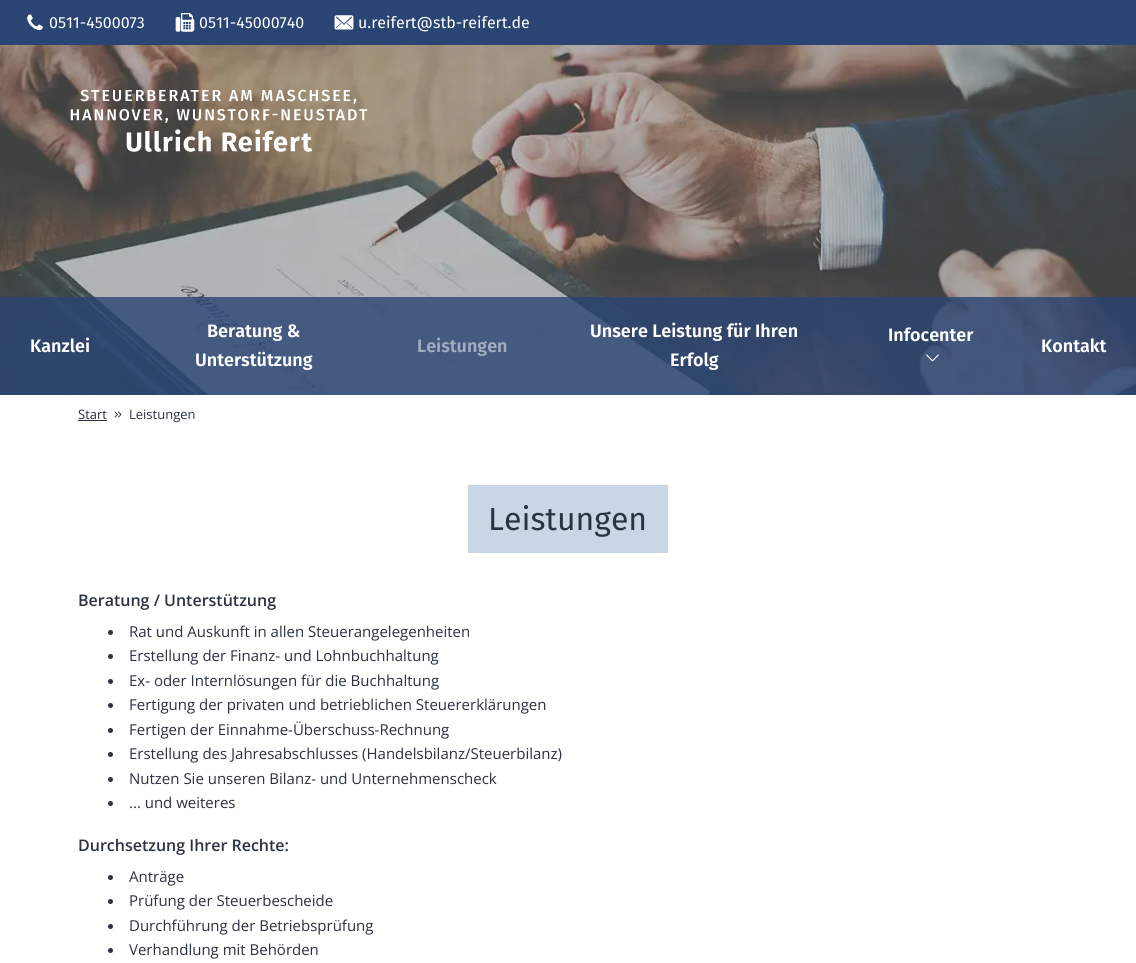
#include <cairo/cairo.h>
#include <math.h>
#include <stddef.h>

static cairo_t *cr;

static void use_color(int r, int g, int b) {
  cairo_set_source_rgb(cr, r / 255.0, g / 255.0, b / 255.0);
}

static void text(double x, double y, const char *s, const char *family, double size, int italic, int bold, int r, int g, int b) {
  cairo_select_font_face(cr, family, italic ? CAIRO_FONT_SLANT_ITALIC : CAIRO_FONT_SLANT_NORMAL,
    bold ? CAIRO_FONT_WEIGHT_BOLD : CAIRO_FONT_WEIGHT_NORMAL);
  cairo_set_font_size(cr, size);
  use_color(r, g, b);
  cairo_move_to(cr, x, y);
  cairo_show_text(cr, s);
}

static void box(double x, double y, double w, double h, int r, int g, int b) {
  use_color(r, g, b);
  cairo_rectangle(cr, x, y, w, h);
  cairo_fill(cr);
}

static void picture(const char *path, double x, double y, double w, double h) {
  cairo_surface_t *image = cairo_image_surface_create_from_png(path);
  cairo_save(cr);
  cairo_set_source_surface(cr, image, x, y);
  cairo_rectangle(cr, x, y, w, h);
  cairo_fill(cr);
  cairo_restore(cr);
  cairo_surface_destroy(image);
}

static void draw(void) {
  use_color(255, 255, 255);
  cairo_paint(cr);
  box(0, 0, 1136, 45, 42, 68, 115);
  picture("img_01.png", 27, 14, 16, 17);
  picture("img_02.png", 175, 13, 20, 19);
  picture("img_03.png", 334, 15, 20, 15);
  picture("img_04.png", 0, 45, 1136, 350);
  picture("img_05.png", 70, 89, 298, 63);
  cairo_set_source_rgba(cr, 0.165, 0.267, 0.451, 0.8);
  cairo_rectangle(cr, 0, 297, 1136, 98);
  cairo_fill(cr);
  picture("img_06.png", 926, 354, 13, 8);
  box(78, 420, 29, 1, 43, 50, 64);
  picture("img_07.png", 114, 411, 8, 7);
  box(468, 485, 200, 68, 202, 213, 230);
  use_color(43, 50, 64);
  cairo_arc(cr, 110.5, 632.5, 2.5, 0, 2 * M_PI);
  cairo_fill(cr);
  cairo_arc(cr, 110.5, 656.5, 2.5, 0, 2 * M_PI);
  cairo_fill(cr);
  cairo_arc(cr, 110.5, 681.5, 2.5, 0, 2 * M_PI);
  cairo_fill(cr);
  cairo_arc(cr, 110.5, 705.5, 2.5, 0, 2 * M_PI);
  cairo_fill(cr);
  cairo_arc(cr, 110.5, 730.5, 2.5, 0, 2 * M_PI);
  cairo_fill(cr);
  cairo_arc(cr, 110.5, 754.5, 2.5, 0, 2 * M_PI);
  cairo_fill(cr);
  cairo_arc(cr, 110.5, 779.5, 2.5, 0, 2 * M_PI);
  cairo_fill(cr);
  cairo_arc(cr, 110.5, 803.5, 2.5, 0, 2 * M_PI);
  cairo_fill(cr);
  cairo_arc(cr, 110.5, 877.5, 2.5, 0, 2 * M_PI);
  cairo_fill(cr);
  cairo_arc(cr, 110.5, 901.5, 2.5, 0, 2 * M_PI);
  cairo_fill(cr);
  cairo_arc(cr, 110.5, 926.5, 2.5, 0, 2 * M_PI);
  cairo_fill(cr);
  cairo_arc(cr, 110.5, 950.5, 2.5, 0, 2 * M_PI);
  cairo_fill(cr);
  text(49, 28, "0511-4500073", "Fira Sans", 16, 0, 0, 255, 255, 255);
  text(199, 28, "0511-45000740", "Fira Sans", 16, 0, 0, 255, 255, 255);
  text(358, 28, "u.reifert@stb-reifert.de", "Fira Sans", 16, 0, 0, 255, 255, 255);
  text(207, 337, "Beratung &", "Fira Sans SemiBold", 18, 0, 0, 255, 255, 255);
  text(195, 366, "Unterstützung", "Fira Sans SemiBold", 18, 0, 0, 255, 255, 255);
  text(590, 337, "Unsere Leistung für Ihren", "Fira Sans SemiBold", 18, 0, 0, 255, 255, 255);
  text(670, 366, "Erfolg", "Fira Sans SemiBold", 18, 0, 0, 255, 255, 255);
  text(888, 341, "Infocenter", "Fira Sans SemiBold", 18, 0, 0, 255, 255, 255);
  text(30, 352, "Kanzlei", "Fira Sans SemiBold", 18, 0, 0, 255, 255, 255);
  text(417, 352, "Leistungen", "Fira Sans SemiBold", 18, 0, 0, 162, 173, 191);
  text(1041, 352, "Kontakt", "Fira Sans SemiBold", 18, 0, 0, 255, 255, 255);
  text(78, 419, "Start", "Open Sans", 13, 0, 0, 43, 50, 64);
  text(129, 419, "Leistungen", "Open Sans", 13, 0, 0, 43, 50, 64);
  text(488, 530, "Leistungen", "Fira Sans", 32, 0, 0, 43, 50, 64);
  text(78, 606, "Beratung / Unterstützung", "Open Sans SemiBold", 16, 0, 0, 43, 50, 64);
  text(129, 637, "Rat und Auskunft in allen Steuerangelegenheiten", "Open Sans", 15, 0, 0, 43, 50, 64);
  text(129, 661, "Erstellung der Finanz- und Lohnbuchhaltung", "Open Sans", 15, 0, 0, 43, 50, 64);
  text(129, 686, "Ex- oder Internlösungen für die Buchhaltung", "Open Sans", 15, 0, 0, 43, 50, 64);
  text(129, 710, "Fertigung der privaten und betrieblichen Steuererklärungen", "Open Sans", 15, 0, 0, 43, 50, 64);
  text(129, 735, "Fertigen der Einnahme-Überschuss-Rechnung", "Open Sans", 15, 0, 0, 43, 50, 64);
  text(129, 759, "Erstellung des Jahresabschlusses (Handelsbilanz/Steuerbilanz)", "Open Sans", 15, 0, 0, 43, 50, 64);
  text(129, 784, "Nutzen Sie unseren Bilanz- und Unternehmenscheck", "Open Sans", 15, 0, 0, 43, 50, 64);
  text(129, 808, "... und weiteres", "Open Sans", 15, 0, 0, 43, 50, 64);
  text(78, 851, "Durchsetzung Ihrer Rechte:", "Open Sans SemiBold", 16, 0, 0, 43, 50, 64);
  text(129, 882, "Anträge", "Open Sans", 15, 0, 0, 43, 50, 64);
  text(129, 906, "Prüfung der Steuerbescheide", "Open Sans", 15, 0, 0, 43, 50, 64);
  text(129, 931, "Durchführung der Betriebsprüfung", "Open Sans", 15, 0, 0, 43, 50, 64);
  text(129, 955, "Verhandlung mit Behörden", "Open Sans", 15, 0, 0, 43, 50, 64);
}

int main(void) {
  cairo_surface_t *surface = cairo_image_surface_create(CAIRO_FORMAT_RGB24, 1136, 963);
  cr = cairo_create(surface);
  cairo_font_options_t *options = cairo_font_options_create();
  cairo_font_options_set_hint_metrics(options, CAIRO_HINT_METRICS_OFF);
  cairo_font_options_set_hint_style(options, CAIRO_HINT_STYLE_NONE);
  cairo_set_font_options(cr, options);
  cairo_set_miter_limit(cr, 4);
  draw();
  cairo_surface_write_to_png(surface, "out.png");
  cairo_font_options_destroy(options);
  cairo_destroy(cr);
  cairo_surface_destroy(surface);
  return 0;
}
